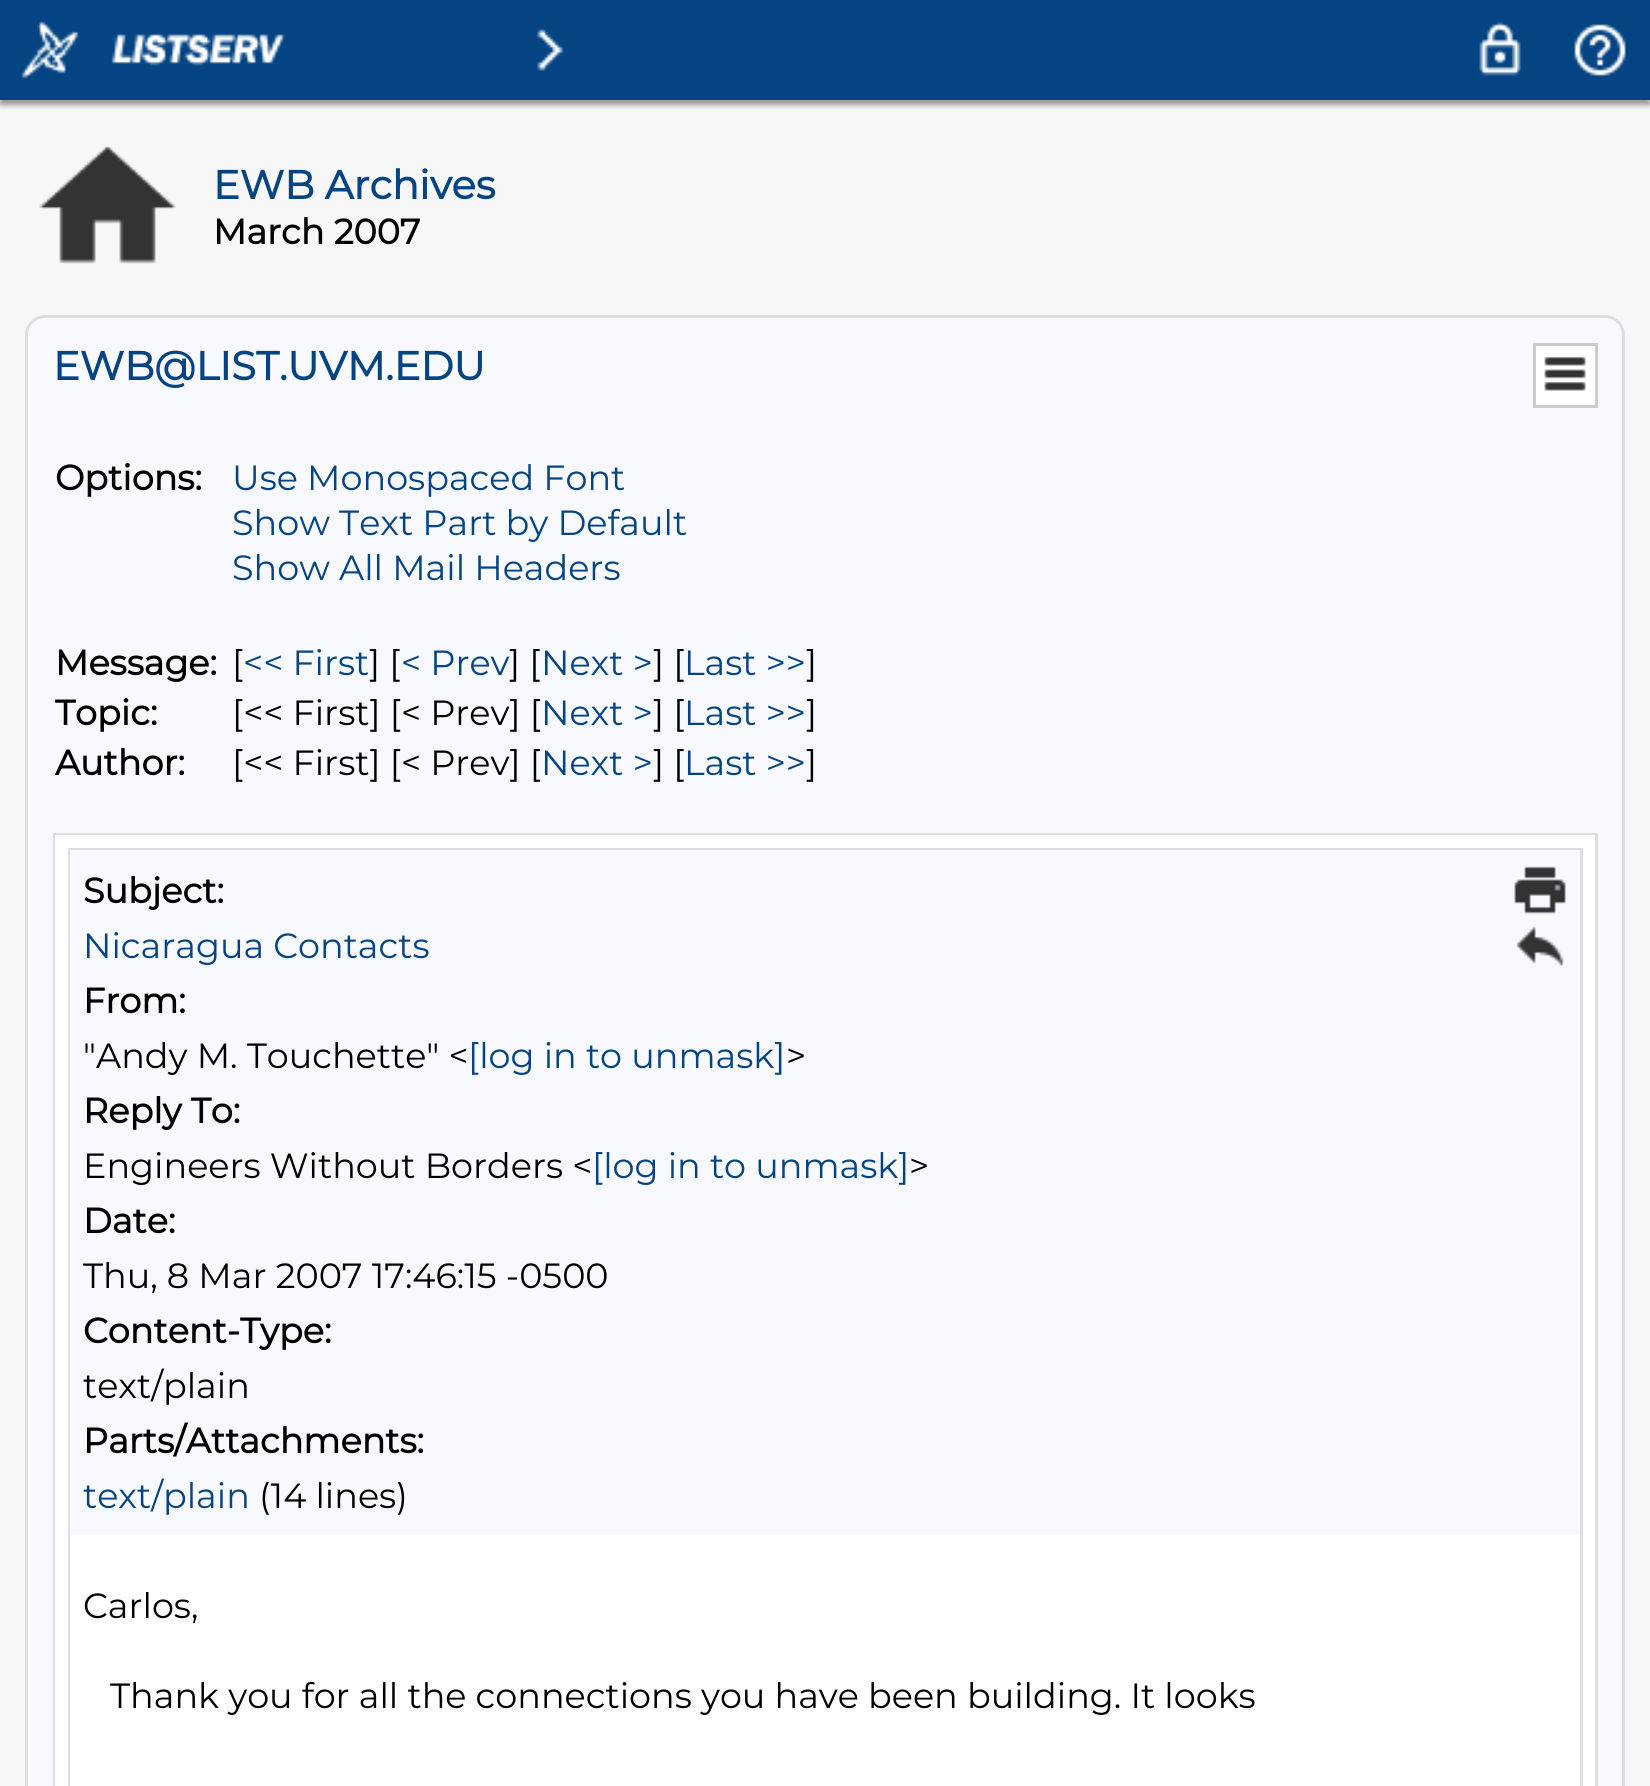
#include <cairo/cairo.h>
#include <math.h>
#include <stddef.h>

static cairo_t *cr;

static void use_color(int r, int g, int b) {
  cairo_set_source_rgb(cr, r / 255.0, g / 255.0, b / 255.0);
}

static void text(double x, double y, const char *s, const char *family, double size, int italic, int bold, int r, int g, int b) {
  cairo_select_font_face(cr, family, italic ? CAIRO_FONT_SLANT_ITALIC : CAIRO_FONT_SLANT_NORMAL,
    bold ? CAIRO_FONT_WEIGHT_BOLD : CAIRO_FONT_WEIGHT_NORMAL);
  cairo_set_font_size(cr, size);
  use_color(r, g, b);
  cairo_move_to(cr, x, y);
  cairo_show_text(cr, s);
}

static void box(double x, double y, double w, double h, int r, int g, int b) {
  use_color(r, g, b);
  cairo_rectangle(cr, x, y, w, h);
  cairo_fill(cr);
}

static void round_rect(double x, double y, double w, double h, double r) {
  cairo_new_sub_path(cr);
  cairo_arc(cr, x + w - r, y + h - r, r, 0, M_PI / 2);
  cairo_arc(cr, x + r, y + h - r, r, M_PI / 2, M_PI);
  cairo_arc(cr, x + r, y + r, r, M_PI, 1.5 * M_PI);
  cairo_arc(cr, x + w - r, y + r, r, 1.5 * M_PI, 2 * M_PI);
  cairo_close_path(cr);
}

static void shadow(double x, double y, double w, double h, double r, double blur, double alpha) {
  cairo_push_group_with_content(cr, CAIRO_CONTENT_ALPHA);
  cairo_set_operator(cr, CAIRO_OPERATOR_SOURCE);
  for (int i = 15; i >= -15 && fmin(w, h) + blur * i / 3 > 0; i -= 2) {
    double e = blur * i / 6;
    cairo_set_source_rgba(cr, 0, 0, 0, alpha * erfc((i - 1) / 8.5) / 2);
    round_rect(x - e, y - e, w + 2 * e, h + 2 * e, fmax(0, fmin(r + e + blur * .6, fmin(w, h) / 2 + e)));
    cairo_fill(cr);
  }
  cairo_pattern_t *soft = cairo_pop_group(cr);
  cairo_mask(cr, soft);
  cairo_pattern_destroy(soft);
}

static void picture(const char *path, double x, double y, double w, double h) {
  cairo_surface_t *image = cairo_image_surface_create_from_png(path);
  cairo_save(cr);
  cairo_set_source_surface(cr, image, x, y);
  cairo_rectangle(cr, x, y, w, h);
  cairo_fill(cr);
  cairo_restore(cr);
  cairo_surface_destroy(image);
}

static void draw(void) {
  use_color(247, 247, 247);
  cairo_paint(cr);
  use_color(153, 153, 153);
  shadow(0, 5, 1650, 100, 0, 2.5, 1);
  box(0, 0, 1650, 100, 5, 68, 131);
  picture("img_01.png", 21, 21, 58, 58);
  picture("img_02.png", 111, 34, 175, 32);
  picture("img_03.png", 536, 29, 28, 42);
  picture("img_04.png", 1479, 22, 42, 54);
  picture("img_05.png", 1574, 24, 52, 52);
  picture("img_06.png", 39, 146, 137, 118);
  use_color(247, 249, 254);
  round_rect(26.5, 316.5, 1597, 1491, 18.5);
  cairo_fill_preserve(cr);
  use_color(222, 222, 222);
  cairo_set_line_width(cr, 3);
  cairo_stroke(cr);
  use_color(255, 255, 255);
  cairo_rectangle(cr, 1534.5, 344.5, 62, 62);
  cairo_fill_preserve(cr);
  use_color(204, 204, 204);
  cairo_stroke(cr);
  picture("img_07.png", 1544, 356, 42, 35);
  cairo_rectangle(cr, 54.5, 834.5, 1542, 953);
  use_color(222, 222, 222);
  cairo_stroke(cr);
  box(55, 835, 1540, 951, 255, 255, 255);
  cairo_rectangle(cr, 69.5, 849.5, 1512, 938);
  use_color(222, 222, 222);
  cairo_stroke(cr);
  box(70, 850, 1510, 685, 247, 249, 254);
  picture("img_08.png", 1514, 866, 52, 48);
  picture("img_09.png", 1516, 926, 48, 40);
  box(70, 1535, 1, 251, 255, 255, 255);
  text(213, 199, "EWB Archives", "Montserrat", 40, 0, 1, 5, 68, 131);
  text(213, 244, "March 2007", "Montserrat", 35, 0, 1, 0, 0, 0);
  text(53, 380, "EWB@LIST.UVM.EDU", "Montserrat", 40, 0, 1, 5, 68, 131);
  text(55, 490, "Options:", "Montserrat", 35, 0, 1, 0, 0, 0);
  text(232, 490, "Use Monospaced Font", "Montserrat Thin", 35, 0, 0, 5, 68, 131);
  text(232, 535, "Show Text Part by Default", "Montserrat Thin", 35, 0, 0, 5, 68, 131);
  text(232, 580, "Show All Mail Headers", "Montserrat Thin", 35, 0, 0, 5, 68, 131);
  text(55, 675, "Message:", "Montserrat", 35, 0, 1, 0, 0, 0);
  text(232, 675, "[", "Montserrat Thin", 35, 0, 0, 0, 0, 0);
  text(243, 675, "<< First", "Montserrat Thin", 35, 0, 0, 5, 68, 131);
  text(369, 675, "] [", "Montserrat Thin", 35, 0, 0, 0, 0, 0);
  text(401, 675, "< Prev", "Montserrat Thin", 35, 0, 0, 5, 68, 131);
  text(509, 675, "] [", "Montserrat Thin", 35, 0, 0, 0, 0, 0);
  text(541, 675, "Next >", "Montserrat Thin", 35, 0, 0, 5, 68, 131);
  text(653, 675, "] [", "Montserrat Thin", 35, 0, 0, 0, 0, 0);
  text(684, 675, "Last >>", "Montserrat Thin", 35, 0, 0, 5, 68, 131);
  text(806, 675, "]", "Montserrat Thin", 35, 0, 0, 0, 0, 0);
  text(55, 725, "Topic:", "Montserrat", 35, 0, 1, 0, 0, 0);
  text(232, 725, "[<< First] [< Prev] [", "Montserrat Thin", 35, 0, 0, 0, 0, 0);
  text(541, 725, "Next >", "Montserrat Thin", 35, 0, 0, 5, 68, 131);
  text(653, 725, "] [", "Montserrat Thin", 35, 0, 0, 0, 0, 0);
  text(684, 725, "Last >>", "Montserrat Thin", 35, 0, 0, 5, 68, 131);
  text(806, 725, "]", "Montserrat Thin", 35, 0, 0, 0, 0, 0);
  text(55, 775, "Author:", "Montserrat", 35, 0, 1, 0, 0, 0);
  text(232, 775, "[<< First] [< Prev] [", "Montserrat Thin", 35, 0, 0, 0, 0, 0);
  text(541, 775, "Next >", "Montserrat Thin", 35, 0, 0, 5, 68, 131);
  text(653, 775, "] [", "Montserrat Thin", 35, 0, 0, 0, 0, 0);
  text(684, 775, "Last >>", "Montserrat Thin", 35, 0, 0, 5, 68, 131);
  text(806, 775, "]", "Montserrat Thin", 35, 0, 0, 0, 0, 0);
  text(83, 903, "Subject:", "Montserrat", 35, 0, 1, 0, 0, 0);
  text(83, 958, "Nicaragua Contacts", "Montserrat Thin", 35, 0, 0, 5, 68, 131);
  text(83, 1013, "From:", "Montserrat", 35, 0, 1, 0, 0, 0);
  text(83, 1068, "\"Andy M. Touchette\" <", "Montserrat Thin", 35, 0, 0, 0, 0, 0);
  text(468, 1068, "[log in to unmask]", "Montserrat Thin", 35, 0, 0, 5, 68, 131);
  text(786, 1068, ">", "Montserrat Thin", 35, 0, 0, 0, 0, 0);
  text(83, 1123, "Reply To:", "Montserrat", 35, 0, 1, 0, 0, 0);
  text(83, 1178, "Engineers Without Borders <", "Montserrat Thin", 35, 0, 0, 0, 0, 0);
  text(592, 1178, "[log in to unmask]", "Montserrat Thin", 35, 0, 0, 5, 68, 131);
  text(909, 1178, ">", "Montserrat Thin", 35, 0, 0, 0, 0, 0);
  text(83, 1233, "Date:", "Montserrat", 35, 0, 1, 0, 0, 0);
  text(83, 1288, "Thu, 8 Mar 2007 17:46:15 -0500", "Montserrat Thin", 35, 0, 0, 0, 0, 0);
  text(83, 1343, "Content-Type:", "Montserrat", 35, 0, 1, 0, 0, 0);
  text(83, 1398, "text/plain", "Montserrat Thin", 35, 0, 0, 0, 0, 0);
  text(83, 1453, "Parts/Attachments:", "Montserrat", 35, 0, 1, 0, 0, 0);
  text(83, 1508, "text/plain", "Montserrat Thin", 35, 0, 0, 5, 68, 131);
  text(259, 1508, "(14 lines)", "Montserrat Thin", 35, 0, 0, 0, 0, 0);
  text(83, 1618, "Carlos,", "Montserrat Thin", 35, 0, 0, 0, 0, 0);
  text(110, 1708, "Thank you for all the connections you have been building. It looks", "Montserrat Thin", 35, 0, 0, 0, 0, 0);
}

int main(void) {
  cairo_surface_t *surface = cairo_image_surface_create(CAIRO_FORMAT_RGB24, 1650, 1786);
  cr = cairo_create(surface);
  cairo_font_options_t *options = cairo_font_options_create();
  cairo_font_options_set_hint_metrics(options, CAIRO_HINT_METRICS_OFF);
  cairo_font_options_set_hint_style(options, CAIRO_HINT_STYLE_NONE);
  cairo_set_font_options(cr, options);
  cairo_set_miter_limit(cr, 4);
  draw();
  cairo_surface_write_to_png(surface, "out.png");
  cairo_font_options_destroy(options);
  cairo_destroy(cr);
  cairo_surface_destroy(surface);
  return 0;
}
